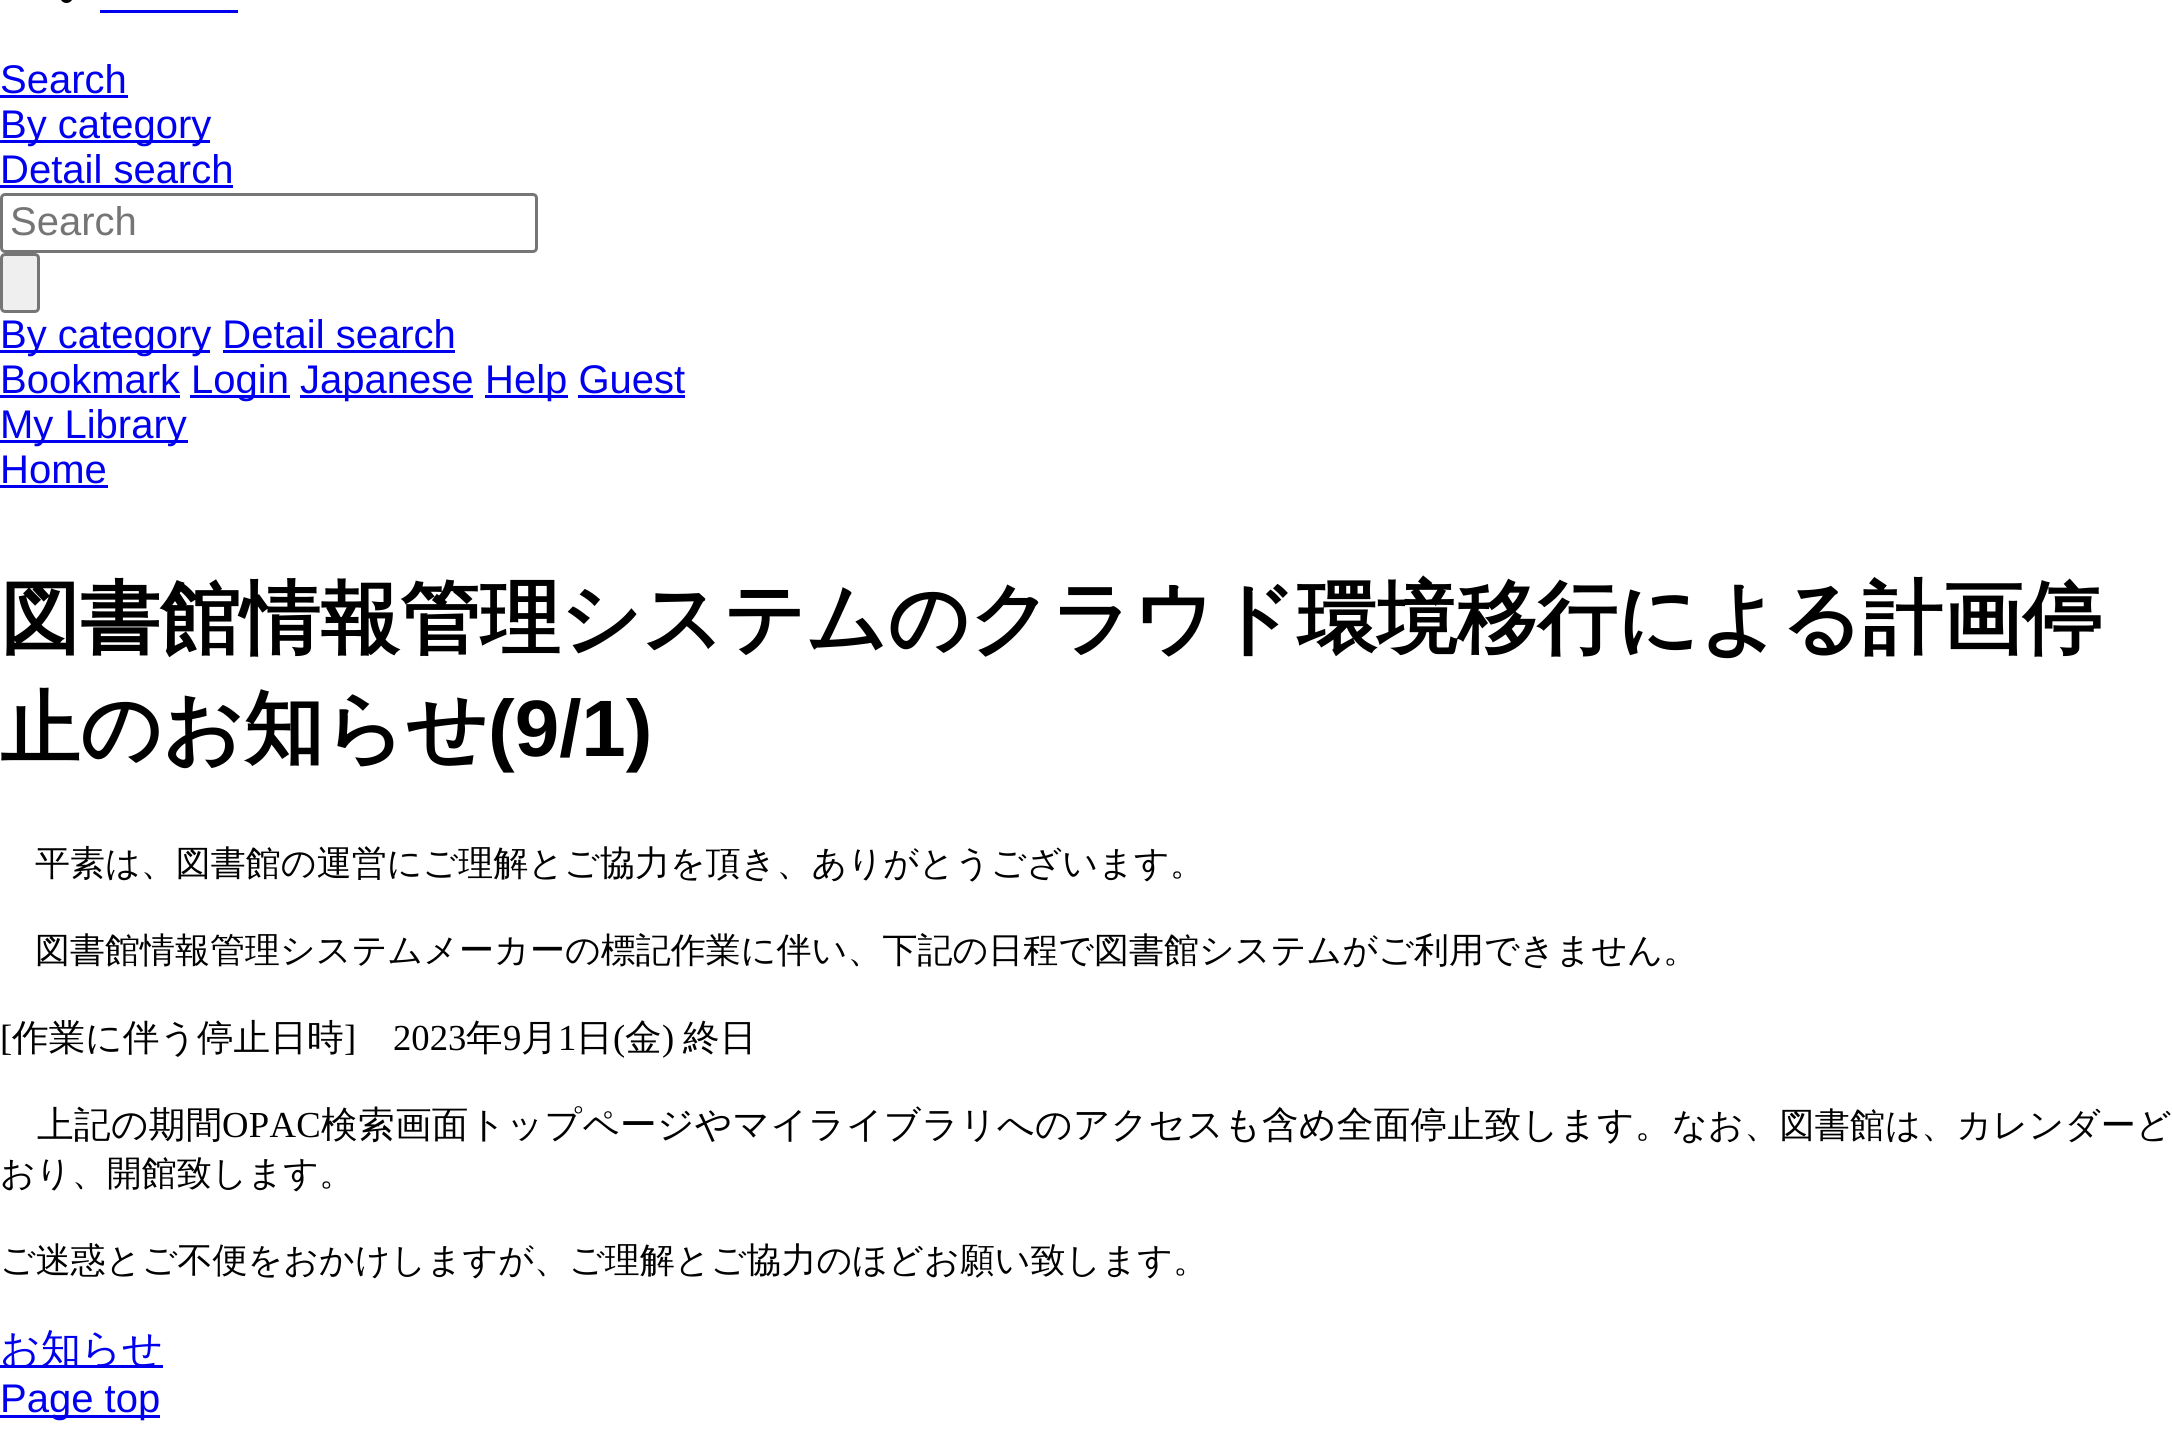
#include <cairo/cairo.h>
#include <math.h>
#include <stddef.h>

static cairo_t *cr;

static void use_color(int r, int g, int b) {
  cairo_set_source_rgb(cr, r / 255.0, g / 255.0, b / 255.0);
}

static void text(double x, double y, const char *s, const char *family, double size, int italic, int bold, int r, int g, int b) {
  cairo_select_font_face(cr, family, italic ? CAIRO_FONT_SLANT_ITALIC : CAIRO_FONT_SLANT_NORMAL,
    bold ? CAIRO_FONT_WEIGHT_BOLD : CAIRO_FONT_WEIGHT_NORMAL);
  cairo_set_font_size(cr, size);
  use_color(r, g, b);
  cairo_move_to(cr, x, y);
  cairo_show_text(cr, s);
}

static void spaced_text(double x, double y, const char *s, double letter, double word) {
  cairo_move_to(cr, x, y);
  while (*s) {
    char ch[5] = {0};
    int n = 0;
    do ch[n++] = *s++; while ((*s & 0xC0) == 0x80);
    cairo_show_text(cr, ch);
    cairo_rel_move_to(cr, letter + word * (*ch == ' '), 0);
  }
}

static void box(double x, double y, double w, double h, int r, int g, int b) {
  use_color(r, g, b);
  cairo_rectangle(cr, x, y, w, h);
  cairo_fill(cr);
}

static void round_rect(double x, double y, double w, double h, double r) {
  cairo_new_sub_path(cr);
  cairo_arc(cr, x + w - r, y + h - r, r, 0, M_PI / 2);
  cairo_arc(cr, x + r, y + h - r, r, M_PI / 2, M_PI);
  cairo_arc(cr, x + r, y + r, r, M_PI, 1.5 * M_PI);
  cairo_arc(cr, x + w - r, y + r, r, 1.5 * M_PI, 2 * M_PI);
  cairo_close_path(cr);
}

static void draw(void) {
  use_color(255, 255, 255);
  cairo_paint(cr);
  use_color(0, 0, 0);
  round_rect(60, -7, 13, 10, 6.5);
  cairo_fill(cr);
  box(100, 10, 138, 3, 0, 0, 238);
  box(0, 95, 128, 3, 0, 0, 238);
  box(0, 140, 210, 3, 0, 0, 238);
  box(0, 185, 233, 3, 0, 0, 238);
  round_rect(1.5, 194.5, 535, 57, 3.5);
  use_color(118, 118, 118);
  cairo_set_line_width(cr, 3);
  cairo_stroke(cr);
  use_color(239, 239, 239);
  round_rect(1.5, 254.5, 37, 57, 3.5);
  cairo_fill_preserve(cr);
  use_color(118, 118, 118);
  cairo_stroke(cr);
  box(0, 350, 210, 3, 0, 0, 238);
  box(223, 350, 232, 3, 0, 0, 238);
  box(0, 395, 180, 3, 0, 0, 238);
  box(190, 395, 100, 3, 0, 0, 238);
  box(300, 395, 173, 3, 0, 0, 238);
  box(485, 395, 83, 3, 0, 0, 238);
  box(578, 395, 107, 3, 0, 0, 238);
  box(0, 440, 188, 3, 0, 0, 238);
  box(0, 485, 108, 3, 0, 0, 238);
  box(0, 1365, 163, 3, 0, 0, 238);
  box(0, 1415, 160, 3, 0, 0, 238);
  text(0, 93, "Search", "Liberation Sans", 40, 0, 0, 0, 0, 238);
  text(0, 138, "By category", "Liberation Sans", 40, 0, 0, 0, 0, 238);
  text(0, 183, "Detail search", "Liberation Sans", 40, 0, 0, 0, 0, 238);
  text(10, 235, "Search", "Liberation Sans", 40, 0, 0, 117, 117, 117);
  text(0, 348, "By category Detail search", "Liberation Sans", 40, 0, 0, 0, 0, 238);
  text(0, 393, "Bookmark", "Liberation Sans", 40, 0, 0, 0, 0, 238);
  text(191, 393, "Login", "Liberation Sans", 40, 0, 0, 0, 0, 238);
  text(300, 393, "Japanese", "Liberation Sans", 40, 0, 0, 0, 0, 238);
  text(485, 393, "Help Guest", "Liberation Sans", 40, 0, 0, 0, 0, 238);
  text(0, 438, "My Library", "Liberation Sans", 40, 0, 0, 0, 0, 238);
  text(0, 483, "Home", "Liberation Sans", 40, 0, 0, 0, 0, 238);
  text(0, 646, "図書館情報管理システムのクラウド環境移行による計画停", "WenQuanYi Zen Hei", 80, 0, 1, 0, 0, 0);
  text(0, 756, "止のお知らせ", "WenQuanYi Zen Hei", 80, 0, 1, 0, 0, 0);
  text(488, 756, "(9/1)", "Liberation Sans", 80, 0, 1, 0, 0, 0);
  text(35, 875, "平素は、図書館の運営にご理解とご協力を頂き、ありがとうございます。", "WenQuanYi Zen Hei Medium", 35, 0, 0, 0, 0, 0);
  text(35, 962, "図書館情報管理システムメーカーの標記作業に伴い、下記の日程で図書館システムがご利用できません。", "WenQuanYi Zen Hei Medium", 35, 0, 0, 0, 0, 0);
  text(0, 1050, "[", "Liberation Serif", 36.65, 0, 0, 0, 0, 0);
  text(12, 1050, "作業に伴う停止日時", "WenQuanYi Zen Hei Medium", 36.65, 0, 0, 0, 0, 0);
  text(344, 1050, "]", "Liberation Serif", 36.65, 0, 0, 0, 0, 0);
  text(393, 1050, "2023", "Liberation Serif", 36.65, 0, 0, 0, 0, 0);
  text(466, 1050, "年", "WenQuanYi Zen Hei Medium", 36.65, 0, 0, 0, 0, 0);
  text(503, 1050, "9", "Liberation Serif", 36.65, 0, 0, 0, 0, 0);
  text(521, 1050, "月", "WenQuanYi Zen Hei Medium", 36.65, 0, 0, 0, 0, 0);
  text(558, 1050, "1", "Liberation Serif", 36.65, 0, 0, 0, 0, 0);
  text(576, 1050, "日", "WenQuanYi Zen Hei Medium", 36.65, 0, 0, 0, 0, 0);
  text(613, 1050, "(", "Liberation Serif", 36.65, 0, 0, 0, 0, 0);
  text(625, 1050, "金", "WenQuanYi Zen Hei Medium", 36.65, 0, 0, 0, 0, 0);
  text(662, 1050, ")", "Liberation Serif", 36.65, 0, 0, 0, 0, 0);
  text(683, 1050, "終日", "WenQuanYi Zen Hei Medium", 36.65, 0, 0, 0, 0, 0);
  spaced_text(37, 1137, "上記の期間", 0.3, 0);
  cairo_select_font_face(cr, "Liberation Serif", CAIRO_FONT_SLANT_NORMAL, CAIRO_FONT_WEIGHT_NORMAL);
  spaced_text(222, 1137, "OPAC", 0.3, 0);
  cairo_select_font_face(cr, "WenQuanYi Zen Hei Medium", CAIRO_FONT_SLANT_NORMAL, CAIRO_FONT_WEIGHT_NORMAL);
  spaced_text(321, 1137, "検索画面トップページやマイライブラリへのアクセスも含め全面停止致します。", 0.3, 0);
  cairo_set_font_size(cr, 35);
  spaced_text(1672, 1137, "なお、図書館は、カレンダーど", 0.25, 0);
  text(0, 1185, "おり、開館致します。", "WenQuanYi Zen Hei Medium", 35, 0, 0, 0, 0, 0);
  text(0, 1272, "ご迷惑とご不便をおかけしますが、ご理解とご協力のほどお願い致します。", "WenQuanYi Zen Hei Medium", 35, 0, 0, 0, 0, 0);
  text(0, 1362, "お知らせ", "WenQuanYi Zen Hei Medium", 40, 0, 0, 0, 0, 238);
  text(0, 1412, "Page top", "Liberation Sans", 40, 0, 0, 0, 0, 238);
}

int main(void) {
  cairo_surface_t *surface = cairo_image_surface_create(CAIRO_FORMAT_RGB24, 2172, 1440);
  cr = cairo_create(surface);
  cairo_font_options_t *options = cairo_font_options_create();
  cairo_font_options_set_hint_metrics(options, CAIRO_HINT_METRICS_OFF);
  cairo_font_options_set_hint_style(options, CAIRO_HINT_STYLE_NONE);
  cairo_set_font_options(cr, options);
  cairo_set_miter_limit(cr, 4);
  draw();
  cairo_surface_write_to_png(surface, "out.png");
  cairo_font_options_destroy(options);
  cairo_destroy(cr);
  cairo_surface_destroy(surface);
  return 0;
}
